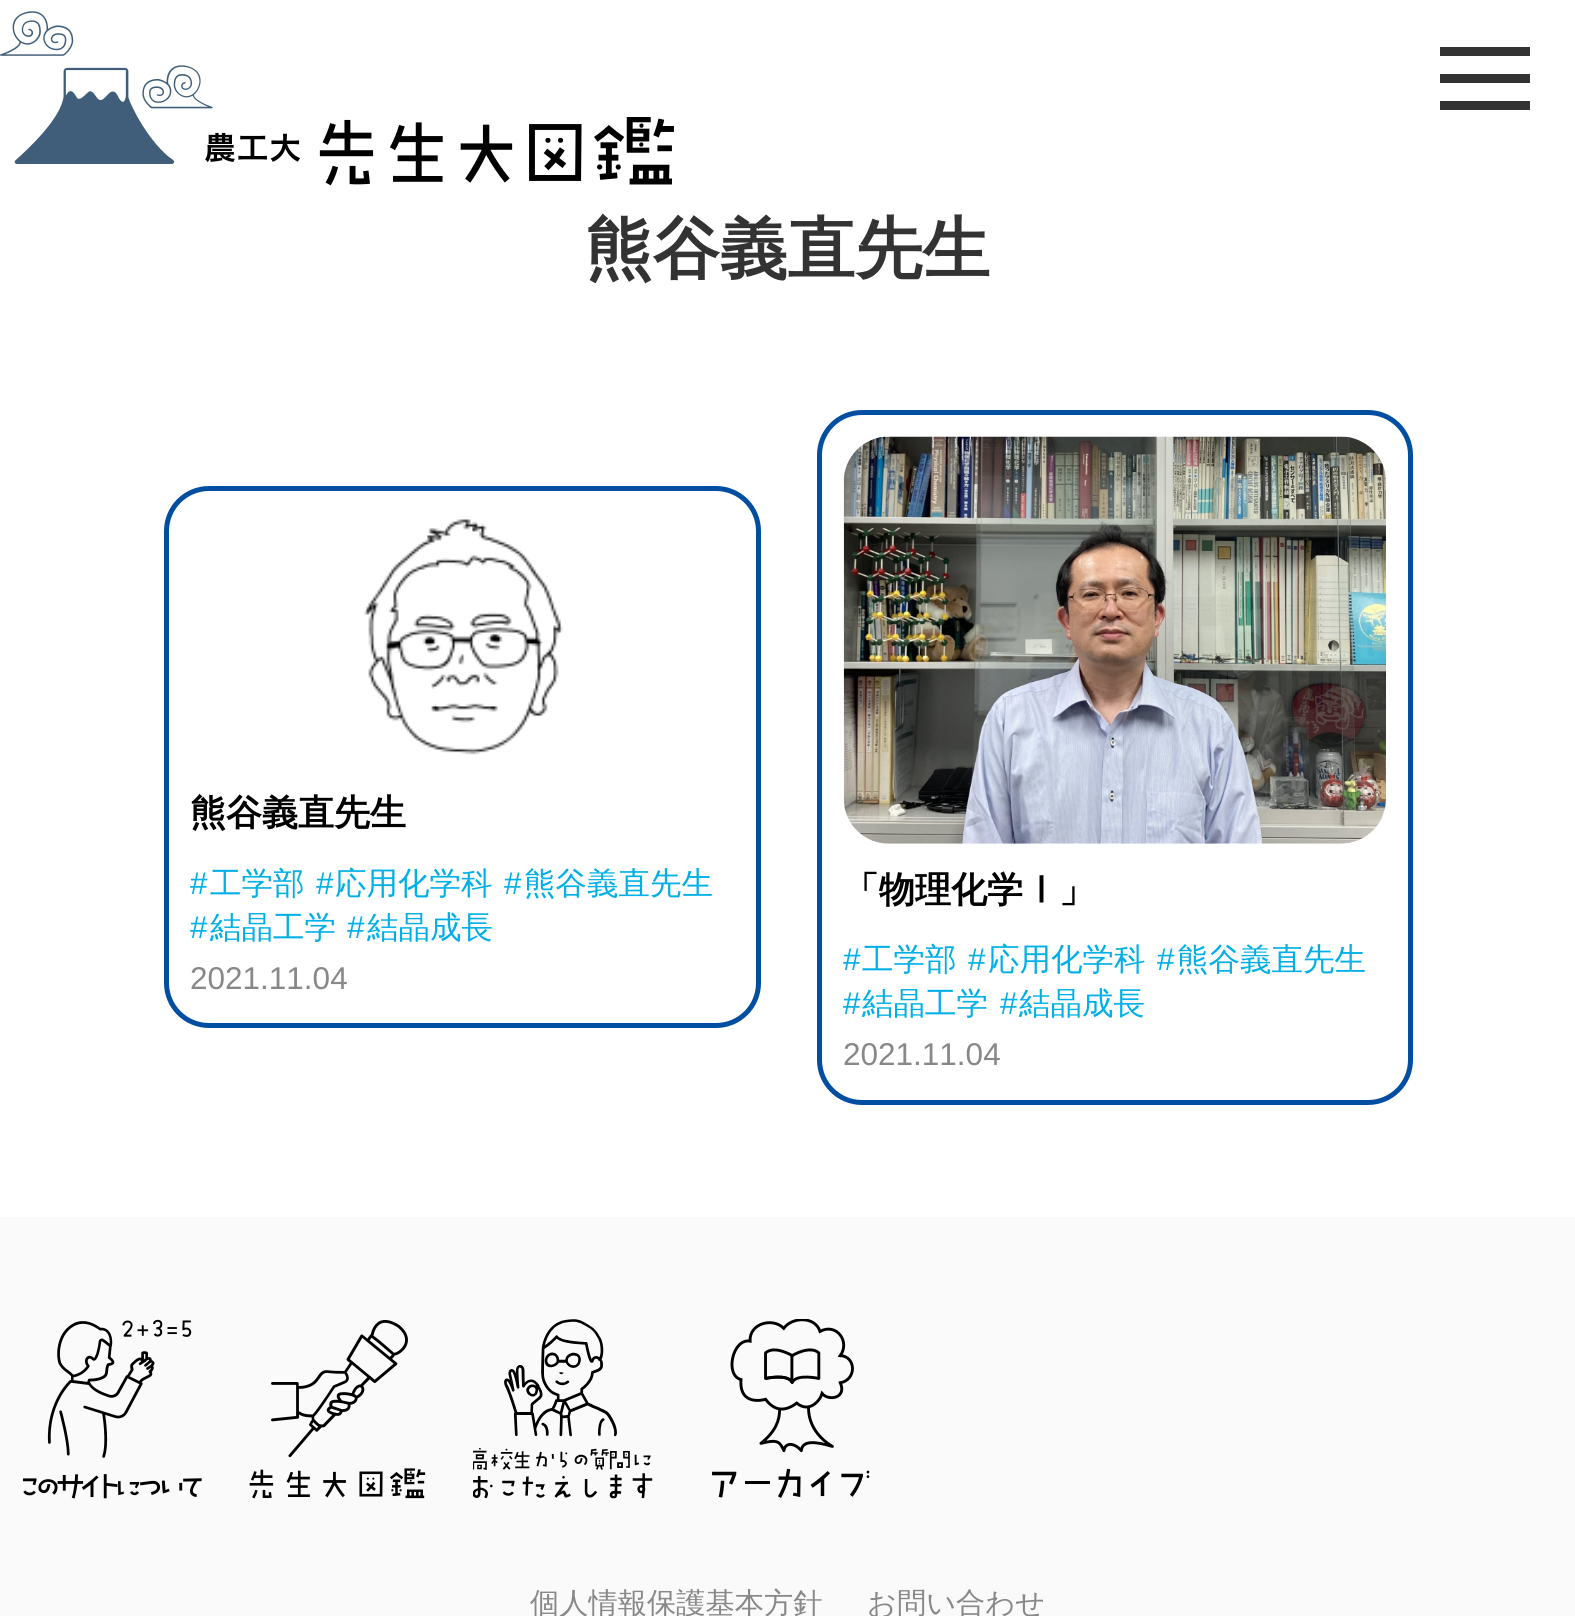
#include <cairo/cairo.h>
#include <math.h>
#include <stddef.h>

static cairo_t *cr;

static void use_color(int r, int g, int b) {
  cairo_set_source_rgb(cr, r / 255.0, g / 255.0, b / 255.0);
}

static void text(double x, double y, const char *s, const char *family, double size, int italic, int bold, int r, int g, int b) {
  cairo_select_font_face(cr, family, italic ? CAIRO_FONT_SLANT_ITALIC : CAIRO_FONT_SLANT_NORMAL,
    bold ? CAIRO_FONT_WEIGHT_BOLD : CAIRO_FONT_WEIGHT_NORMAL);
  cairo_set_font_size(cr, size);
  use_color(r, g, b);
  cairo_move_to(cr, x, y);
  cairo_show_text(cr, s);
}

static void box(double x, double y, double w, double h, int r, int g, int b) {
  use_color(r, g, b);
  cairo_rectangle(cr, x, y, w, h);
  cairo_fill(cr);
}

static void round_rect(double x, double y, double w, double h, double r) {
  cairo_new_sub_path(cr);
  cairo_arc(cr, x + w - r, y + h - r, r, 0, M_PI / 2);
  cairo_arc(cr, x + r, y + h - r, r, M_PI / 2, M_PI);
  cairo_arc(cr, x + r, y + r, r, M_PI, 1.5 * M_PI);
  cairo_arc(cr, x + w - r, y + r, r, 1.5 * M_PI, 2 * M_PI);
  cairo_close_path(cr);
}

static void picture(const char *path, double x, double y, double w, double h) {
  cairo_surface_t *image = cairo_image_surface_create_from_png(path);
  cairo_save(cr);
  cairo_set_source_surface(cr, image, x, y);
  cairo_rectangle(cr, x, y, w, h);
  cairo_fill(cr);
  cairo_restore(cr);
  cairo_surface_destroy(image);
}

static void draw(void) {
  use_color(255, 255, 255);
  cairo_paint(cr);
  picture("img_01.png", 0, 11, 674, 175);
  box(1440, 74, 90, 9, 51, 51, 51);
  box(1440, 47, 90, 9, 51, 51, 51);
  box(1440, 101, 90, 9, 51, 51, 51);
  round_rect(166.5, 488.5, 592, 537, 42.5);
  use_color(0, 78, 162);
  cairo_set_line_width(cr, 5);
  cairo_stroke(cr);
  picture("img_02.png", 364, 519, 199, 236);
  round_rect(819.5, 412.5, 591, 690, 42.5);
  cairo_stroke(cr);
  picture("img_03.png", 843, 436, 543, 408);
  box(0, 1217, 1575, 399, 250, 250, 250);
  picture("img_04.png", 23, 1319, 179, 180);
  picture("img_05.png", 249, 1319, 177, 180);
  picture("img_06.png", 473, 1319, 180, 180);
  picture("img_07.png", 712, 1319, 158, 179);
  text(585, 272, "熊谷義直先生", "WenQuanYi Zen Hei", 67.5, 0, 1, 51, 51, 51);
  text(190, 825, "熊谷義直先生", "WenQuanYi Zen Hei", 36, 0, 1, 0, 0, 0);
  text(190, 894, "#", "Liberation Sans", 31.5, 0, 0, 0, 175, 229);
  text(210, 894, "工学部", "WenQuanYi Zen Hei Medium", 31.5, 0, 0, 0, 175, 229);
  text(316, 894, "#", "Liberation Sans", 31.5, 0, 0, 0, 175, 229);
  text(335, 894, "応用化学科", "WenQuanYi Zen Hei Medium", 31.5, 0, 0, 0, 175, 229);
  text(504, 894, "#", "Liberation Sans", 31.5, 0, 0, 0, 175, 229);
  text(524, 894, "熊谷義直先生", "WenQuanYi Zen Hei Medium", 31.5, 0, 0, 0, 175, 229);
  text(190, 938, "#", "Liberation Sans", 31.5, 0, 0, 0, 175, 229);
  text(210, 938, "結晶工学", "WenQuanYi Zen Hei Medium", 31.5, 0, 0, 0, 175, 229);
  text(347, 938, "#", "Liberation Sans", 31.5, 0, 0, 0, 175, 229);
  text(367, 938, "結晶成長", "WenQuanYi Zen Hei Medium", 31.5, 0, 0, 0, 175, 229);
  text(190, 989, "2021.11.04", "Liberation Sans", 31.5, 0, 0, 136, 136, 136);
  text(843, 902, "「物理化学Ⅰ」", "WenQuanYi Zen Hei", 36, 0, 1, 0, 0, 0);
  text(843, 970, "#", "Liberation Sans", 31.5, 0, 0, 0, 175, 229);
  text(862, 970, "工学部", "WenQuanYi Zen Hei Medium", 31.5, 0, 0, 0, 175, 229);
  text(968, 970, "#", "Liberation Sans", 31.5, 0, 0, 0, 175, 229);
  text(988, 970, "応用化学科", "WenQuanYi Zen Hei Medium", 31.5, 0, 0, 0, 175, 229);
  text(1157, 970, "#", "Liberation Sans", 31.5, 0, 0, 0, 175, 229);
  text(1177, 970, "熊谷義直先生", "WenQuanYi Zen Hei Medium", 31.5, 0, 0, 0, 175, 229);
  text(843, 1014, "#", "Liberation Sans", 31.5, 0, 0, 0, 175, 229);
  text(862, 1014, "結晶工学", "WenQuanYi Zen Hei Medium", 31.5, 0, 0, 0, 175, 229);
  text(1000, 1014, "#", "Liberation Sans", 31.5, 0, 0, 0, 175, 229);
  text(1019, 1014, "結晶成長", "WenQuanYi Zen Hei Medium", 31.5, 0, 0, 0, 175, 229);
  text(843, 1065, "2021.11.04", "Liberation Sans", 31.5, 0, 0, 136, 136, 136);
  text(530, 1613, "個人情報保護基本方針", "WenQuanYi Zen Hei Medium", 29.25, 0, 0, 136, 136, 136);
  text(867, 1613, "お問い合わせ", "WenQuanYi Zen Hei Medium", 29.25, 0, 0, 136, 136, 136);
}

int main(void) {
  cairo_surface_t *surface = cairo_image_surface_create(CAIRO_FORMAT_RGB24, 1575, 1616);
  cr = cairo_create(surface);
  cairo_font_options_t *options = cairo_font_options_create();
  cairo_font_options_set_hint_metrics(options, CAIRO_HINT_METRICS_OFF);
  cairo_font_options_set_hint_style(options, CAIRO_HINT_STYLE_NONE);
  cairo_set_font_options(cr, options);
  cairo_set_miter_limit(cr, 4);
  draw();
  cairo_surface_write_to_png(surface, "out.png");
  cairo_font_options_destroy(options);
  cairo_destroy(cr);
  cairo_surface_destroy(surface);
  return 0;
}
